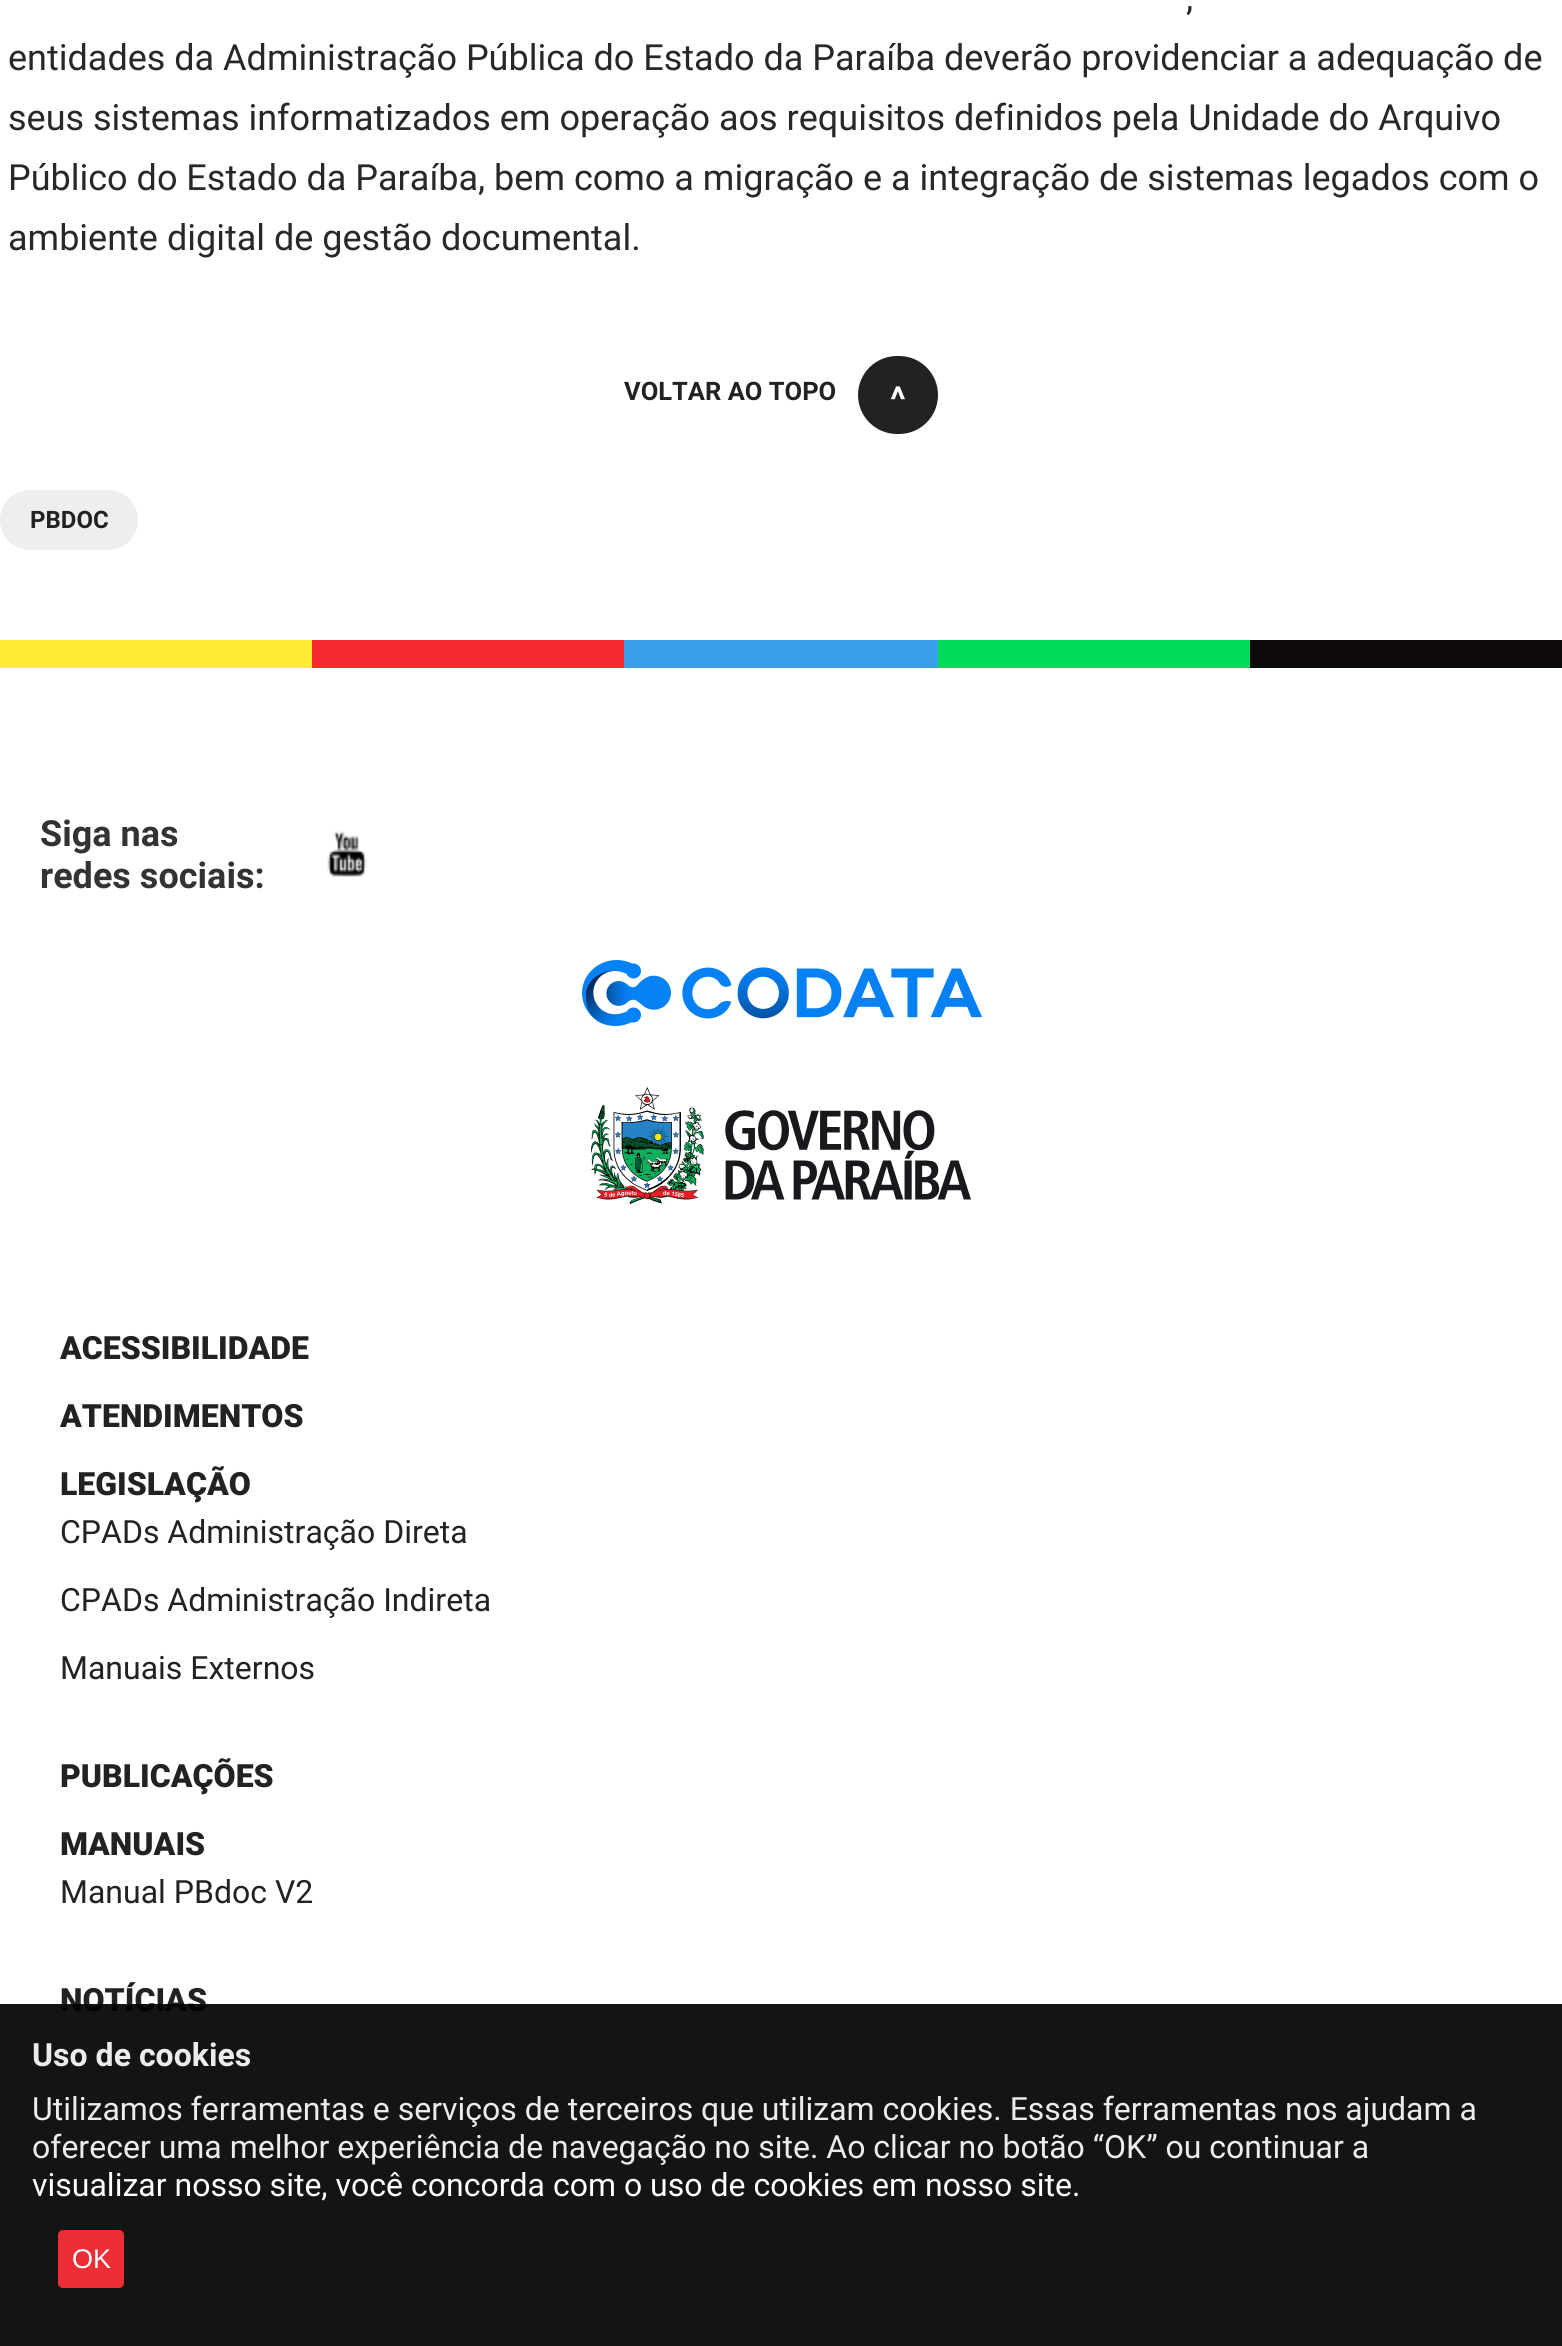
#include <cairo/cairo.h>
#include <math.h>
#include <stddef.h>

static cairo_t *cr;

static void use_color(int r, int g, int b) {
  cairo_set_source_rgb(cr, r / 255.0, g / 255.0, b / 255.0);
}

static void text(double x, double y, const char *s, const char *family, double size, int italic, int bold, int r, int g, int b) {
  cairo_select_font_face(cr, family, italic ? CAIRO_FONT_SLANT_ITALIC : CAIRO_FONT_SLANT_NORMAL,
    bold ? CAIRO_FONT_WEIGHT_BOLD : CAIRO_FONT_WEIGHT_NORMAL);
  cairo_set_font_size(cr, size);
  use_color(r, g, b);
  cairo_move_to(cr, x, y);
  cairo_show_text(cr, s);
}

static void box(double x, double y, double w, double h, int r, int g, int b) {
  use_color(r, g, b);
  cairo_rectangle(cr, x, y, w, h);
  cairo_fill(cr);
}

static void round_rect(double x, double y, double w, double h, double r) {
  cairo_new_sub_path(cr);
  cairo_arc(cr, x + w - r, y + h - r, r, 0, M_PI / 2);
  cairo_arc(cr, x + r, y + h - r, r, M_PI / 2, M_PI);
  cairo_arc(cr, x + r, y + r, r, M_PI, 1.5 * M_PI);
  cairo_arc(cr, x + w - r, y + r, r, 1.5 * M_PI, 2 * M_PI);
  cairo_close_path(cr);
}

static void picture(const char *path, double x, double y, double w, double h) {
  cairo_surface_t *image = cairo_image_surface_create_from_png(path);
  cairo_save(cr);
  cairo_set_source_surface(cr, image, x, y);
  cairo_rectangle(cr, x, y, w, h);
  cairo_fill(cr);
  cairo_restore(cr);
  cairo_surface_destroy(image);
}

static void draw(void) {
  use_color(255, 255, 255);
  cairo_paint(cr);
  use_color(34, 34, 34);
  round_rect(858, 356, 80, 78, 39);
  cairo_fill(cr);
  use_color(238, 238, 238);
  round_rect(0, 490, 138, 60, 30);
  cairo_fill(cr);
  box(0, 640, 312, 28, 255, 235, 54);
  box(312, 640, 312, 28, 247, 41, 48);
  box(624, 640, 314, 28, 57, 159, 232);
  box(938, 640, 312, 28, 0, 220, 88);
  box(1250, 640, 312, 28, 15, 10, 10);
  picture("img_01.png", 327, 831, 40, 46);
  picture("img_02.png", 582, 960, 400, 66);
  picture("img_03.png", 591, 1087, 380, 117);
  text(1186, 10, ",", "Roboto", 36, 0, 0, 40, 40, 40);
  text(8, 70, "entidades da Administração Pública do Estado da Paraíba deverão providenciar a adequação de", "Roboto", 36, 0, 0, 40, 40, 40);
  text(8, 130, "seus sistemas informatizados em operação aos requisitos definidos pela Unidade do Arquivo", "Roboto", 36, 0, 0, 40, 40, 40);
  text(8, 190, "Público do Estado da Paraíba, bem como a migração e a integração de sistemas legados com o", "Roboto", 36, 0, 0, 40, 40, 40);
  text(8, 250, "ambiente digital de gestão documental.", "Roboto", 36, 0, 0, 40, 40, 40);
  text(624, 400, "VOLTAR AO TOPO", "Roboto", 25.5, 0, 1, 34, 34, 34);
  text(890, 412, "^", "Roboto", 36, 0, 1, 255, 255, 255);
  text(30, 528, "PBDOC", "Roboto", 24, 0, 1, 34, 34, 34);
  text(40, 846, "Siga nas", "Roboto", 36, 0, 1, 51, 51, 51);
  text(40, 888, "redes sociais:", "Roboto", 36, 0, 1, 51, 51, 51);
  text(60, 1359, "ACESSIBILIDADE", "Roboto Black", 32, 0, 0, 34, 34, 34);
  text(60, 1427, "ATENDIMENTOS", "Roboto Black", 32, 0, 0, 34, 34, 34);
  text(60, 1495, "LEGISLAÇÃO", "Roboto Black", 32, 0, 0, 34, 34, 34);
  text(60, 1543, "CPADs Administração Direta", "Roboto", 32, 0, 0, 34, 34, 34);
  text(60, 1611, "CPADs Administração Indireta", "Roboto", 32, 0, 0, 34, 34, 34);
  text(60, 1679, "Manuais Externos", "Roboto", 32, 0, 0, 34, 34, 34);
  text(60, 1787, "PUBLICAÇÕES", "Roboto Black", 32, 0, 0, 34, 34, 34);
  text(60, 1855, "MANUAIS", "Roboto Black", 32, 0, 0, 34, 34, 34);
  text(60, 1903, "Manual PBdoc V2", "Roboto", 32, 0, 0, 34, 34, 34);
  text(60, 2011, "NOTÍCIAS", "Roboto Black", 32, 0, 0, 34, 34, 34);
  cairo_set_source_rgba(cr, 0, 0, 0, 0.92);
  cairo_rectangle(cr, 0, 2004, 1562, 342);
  cairo_fill(cr);
  text(32, 2066, "Uso de cookies", "Roboto", 32, 0, 1, 236, 236, 236);
  text(32, 2120, "Utilizamos ferramentas e serviços de terceiros que utilizam cookies. Essas ferramentas nos ajudam a", "Roboto", 32, 0, 0, 236, 236, 236);
  text(32, 2158, "oferecer uma melhor experiência de navegação no site. Ao clicar no botão “OK” ou continuar a", "Roboto", 32, 0, 0, 236, 236, 236);
  text(32, 2196, "visualizar nosso site, você concorda com o uso de cookies em nosso site.", "Roboto", 32, 0, 0, 255, 255, 255);
  use_color(238, 46, 54);
  round_rect(58, 2230, 66, 58, 5);
  cairo_fill(cr);
  text(72, 2268, "OK", "Liberation Sans", 27, 0, 0, 255, 255, 255);
}

int main(void) {
  cairo_surface_t *surface = cairo_image_surface_create(CAIRO_FORMAT_RGB24, 1562, 2346);
  cr = cairo_create(surface);
  cairo_font_options_t *options = cairo_font_options_create();
  cairo_font_options_set_hint_metrics(options, CAIRO_HINT_METRICS_OFF);
  cairo_font_options_set_hint_style(options, CAIRO_HINT_STYLE_NONE);
  cairo_set_font_options(cr, options);
  cairo_set_miter_limit(cr, 4);
  draw();
  cairo_surface_write_to_png(surface, "out.png");
  cairo_font_options_destroy(options);
  cairo_destroy(cr);
  cairo_surface_destroy(surface);
  return 0;
}
